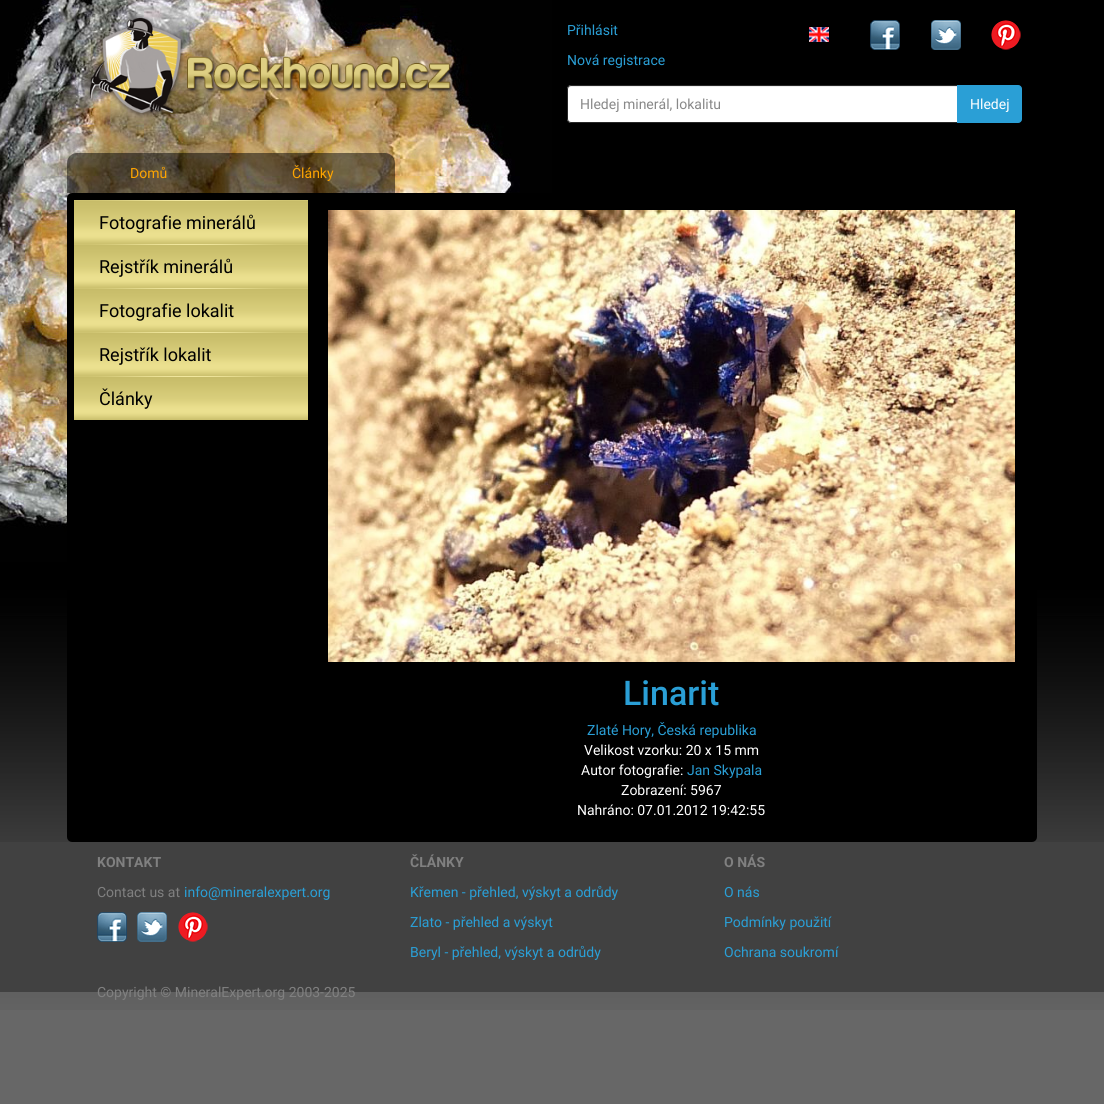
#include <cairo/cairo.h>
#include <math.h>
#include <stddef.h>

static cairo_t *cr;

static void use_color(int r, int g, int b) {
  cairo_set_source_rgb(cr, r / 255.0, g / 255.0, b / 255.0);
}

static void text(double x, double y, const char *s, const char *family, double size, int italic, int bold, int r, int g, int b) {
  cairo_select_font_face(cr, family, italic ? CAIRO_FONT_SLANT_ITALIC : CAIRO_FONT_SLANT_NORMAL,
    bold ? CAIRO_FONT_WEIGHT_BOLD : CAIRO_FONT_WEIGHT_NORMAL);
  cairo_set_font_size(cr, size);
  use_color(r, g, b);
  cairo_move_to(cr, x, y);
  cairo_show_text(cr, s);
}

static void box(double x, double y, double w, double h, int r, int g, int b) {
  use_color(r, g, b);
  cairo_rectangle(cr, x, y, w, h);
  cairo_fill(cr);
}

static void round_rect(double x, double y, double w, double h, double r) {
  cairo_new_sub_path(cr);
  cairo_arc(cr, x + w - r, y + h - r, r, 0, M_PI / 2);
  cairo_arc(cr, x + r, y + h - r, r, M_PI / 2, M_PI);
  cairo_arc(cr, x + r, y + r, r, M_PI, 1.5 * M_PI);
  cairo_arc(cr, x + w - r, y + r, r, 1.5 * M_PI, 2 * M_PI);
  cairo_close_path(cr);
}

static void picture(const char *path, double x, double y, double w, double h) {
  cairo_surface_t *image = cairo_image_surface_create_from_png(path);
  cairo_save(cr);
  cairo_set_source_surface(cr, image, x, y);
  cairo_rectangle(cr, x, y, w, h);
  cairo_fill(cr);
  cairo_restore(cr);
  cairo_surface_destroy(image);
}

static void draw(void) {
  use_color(103, 103, 103);
  cairo_paint(cr);
  picture("img_01.png", 0, 0, 1104, 1010);
  picture("img_02.png", 86, 14, 367, 104);
  picture("img_03.png", 809, 27, 20, 15);
  picture("img_04.png", 870, 20, 30, 30);
  picture("img_05.png", 931, 20, 30, 30);
  picture("img_06.png", 991, 20, 30, 30);
  use_color(255, 255, 255);
  cairo_new_path(cr);
  cairo_move_to(cr, 571, 85);
  cairo_line_to(cr, 958, 85);
  cairo_line_to(cr, 958, 123);
  cairo_line_to(cr, 571, 123);
  cairo_curve_to(cr, 569, 123, 567, 121, 567, 119);
  cairo_line_to(cr, 567, 89);
  cairo_curve_to(cr, 567, 87, 569, 85, 571, 85);
  cairo_close_path(cr);
  cairo_fill(cr);
  use_color(236, 236, 236);
  cairo_new_path(cr);
  cairo_move_to(cr, 571, 87);
  cairo_line_to(cr, 957, 87);
  cairo_line_to(cr, 957, 86);
  cairo_line_to(cr, 571, 86);
  cairo_curve_to(cr, 569, 86, 568, 87, 568, 89);
  cairo_line_to(cr, 568, 90);
  cairo_curve_to(cr, 568, 88, 569, 87, 571, 87);
  cairo_close_path(cr);
  cairo_fill(cr);
  cairo_new_path(cr);
  cairo_move_to(cr, 571, 85.5);
  cairo_line_to(cr, 957.5, 85.5);
  cairo_line_to(cr, 957.5, 122.5);
  cairo_line_to(cr, 571, 122.5);
  cairo_curve_to(cr, 569, 122.5, 567.5, 121, 567.5, 119);
  cairo_line_to(cr, 567.5, 89);
  cairo_curve_to(cr, 567.5, 87, 569, 85.5, 571, 85.5);
  cairo_close_path(cr);
  use_color(40, 40, 40);
  cairo_set_line_width(cr, 1);
  cairo_stroke(cr);
  use_color(42, 159, 214);
  cairo_new_path(cr);
  cairo_move_to(cr, 957.5, 85.5);
  cairo_line_to(cr, 1018, 85.5);
  cairo_curve_to(cr, 1020, 85.5, 1021.5, 87, 1021.5, 89);
  cairo_line_to(cr, 1021.5, 119);
  cairo_curve_to(cr, 1021.5, 121, 1020, 122.5, 1018, 122.5);
  cairo_line_to(cr, 957.5, 122.5);
  cairo_close_path(cr);
  cairo_fill_preserve(cr);
  cairo_stroke(cr);
  cairo_set_source_rgba(cr, 0, 0, 0, 0.5);
  cairo_new_path(cr);
  cairo_move_to(cr, 77, 153);
  cairo_line_to(cr, 231, 153);
  cairo_line_to(cr, 231, 193);
  cairo_line_to(cr, 67, 193);
  cairo_line_to(cr, 67, 163);
  cairo_curve_to(cr, 67, 157.5, 71.5, 153, 77, 153);
  cairo_close_path(cr);
  cairo_fill(cr);
  cairo_new_path(cr);
  cairo_move_to(cr, 231, 153);
  cairo_line_to(cr, 385, 153);
  cairo_curve_to(cr, 390.5, 153, 395, 157.5, 395, 163);
  cairo_line_to(cr, 395, 193);
  cairo_line_to(cr, 231, 193);
  cairo_close_path(cr);
  cairo_fill(cr);
  use_color(0, 0, 0);
  round_rect(70.5, 196.5, 963, 642, 1.5);
  cairo_fill_preserve(cr);
  cairo_set_line_width(cr, 7);
  cairo_stroke(cr);
  picture("img_07.png", 74, 200, 234, 44);
  picture("img_07.png", 74, 244, 234, 44);
  picture("img_07.png", 74, 288, 234, 44);
  picture("img_07.png", 74, 332, 234, 44);
  picture("img_07.png", 74, 376, 234, 44);
  picture("img_08.png", 328, 210, 687, 452);
  box(0, 842, 1104, 150, 65, 65, 65);
  picture("img_09.png", 97, 912, 30, 30);
  picture("img_10.png", 137, 912, 30, 30);
  picture("img_11.png", 178, 912, 30, 30);
  text(567, 35, "Přihlásit", "Roboto", 14, 0, 0, 42, 159, 214);
  text(567, 65, "Nová registrace", "Roboto", 14, 0, 0, 42, 159, 214);
  text(580, 109, "Hledej minerál, lokalitu", "Roboto", 14, 0, 0, 136, 136, 136);
  text(970, 109, "Hledej", "Roboto", 14, 0, 0, 255, 255, 255);
  text(130, 178, "Domů", "Roboto", 14, 0, 0, 255, 165, 0);
  text(292, 178, "Články", "Roboto", 14, 0, 0, 255, 165, 0);
  text(99, 229, "Fotografie minerálů", "Roboto", 18, 0, 0, 0, 0, 0);
  text(99, 273, "Rejstřík minerálů", "Roboto", 18, 0, 0, 0, 0, 0);
  text(99, 317, "Fotografie lokalit", "Roboto", 18, 0, 0, 0, 0, 0);
  text(99, 361, "Rejstřík lokalit", "Roboto", 18, 0, 0, 0, 0, 0);
  text(99, 405, "Články", "Roboto", 18, 0, 0, 0, 0, 0);
  text(623, 705, "Linarit", "Roboto Medium", 34, 0, 0, 42, 159, 214);
  text(587, 735, "Zlaté Hory, Česká republika", "Roboto", 14, 0, 0, 42, 159, 214);
  text(584, 755, "Velikost vzorku: 20 x 15 mm", "Roboto", 14, 0, 0, 255, 255, 255);
  text(581, 775, "Autor fotografie:", "Roboto", 14, 0, 0, 255, 255, 255);
  text(687, 775, "Jan Skypala", "Roboto", 14, 0, 0, 42, 159, 214);
  text(621, 795, "Zobrazení: 5967", "Roboto", 14, 0, 0, 255, 255, 255);
  text(577, 815, "Nahráno: 07.01.2012 19:42:55", "Roboto", 14, 0, 0, 255, 255, 255);
  text(97, 867, "KONTAKT", "Roboto", 14, 0, 1, 128, 128, 128);
  text(97, 897, "Contact us at", "Roboto", 14, 0, 0, 128, 128, 128);
  text(184, 897, "info@mineralexpert.org", "Roboto", 14, 0, 0, 42, 159, 214);
  text(410, 867, "ČLÁNKY", "Roboto", 14, 0, 1, 128, 128, 128);
  text(410, 897, "Křemen - přehled, výskyt a odrůdy", "Roboto", 14, 0, 0, 42, 159, 214);
  text(410, 927, "Zlato - přehled a výskyt", "Roboto", 14, 0, 0, 42, 159, 214);
  text(410, 957, "Beryl - přehled, výskyt a odrůdy", "Roboto", 14, 0, 0, 42, 159, 214);
  text(724, 867, "O NÁS", "Roboto", 14, 0, 1, 128, 128, 128);
  text(724, 897, "O nás", "Roboto", 14, 0, 0, 42, 159, 214);
  text(724, 927, "Podmínky použití", "Roboto", 14, 0, 0, 42, 159, 214);
  text(724, 957, "Ochrana soukromí", "Roboto", 14, 0, 0, 42, 159, 214);
  text(97, 997, "Copyright © MineralExpert.org 2003-2025", "Roboto", 14, 0, 0, 128, 128, 128);
}

int main(void) {
  cairo_surface_t *surface = cairo_image_surface_create(CAIRO_FORMAT_RGB24, 1104, 1104);
  cr = cairo_create(surface);
  cairo_font_options_t *options = cairo_font_options_create();
  cairo_font_options_set_hint_metrics(options, CAIRO_HINT_METRICS_OFF);
  cairo_font_options_set_hint_style(options, CAIRO_HINT_STYLE_NONE);
  cairo_set_font_options(cr, options);
  cairo_set_miter_limit(cr, 4);
  draw();
  cairo_surface_write_to_png(surface, "out.png");
  cairo_font_options_destroy(options);
  cairo_destroy(cr);
  cairo_surface_destroy(surface);
  return 0;
}
